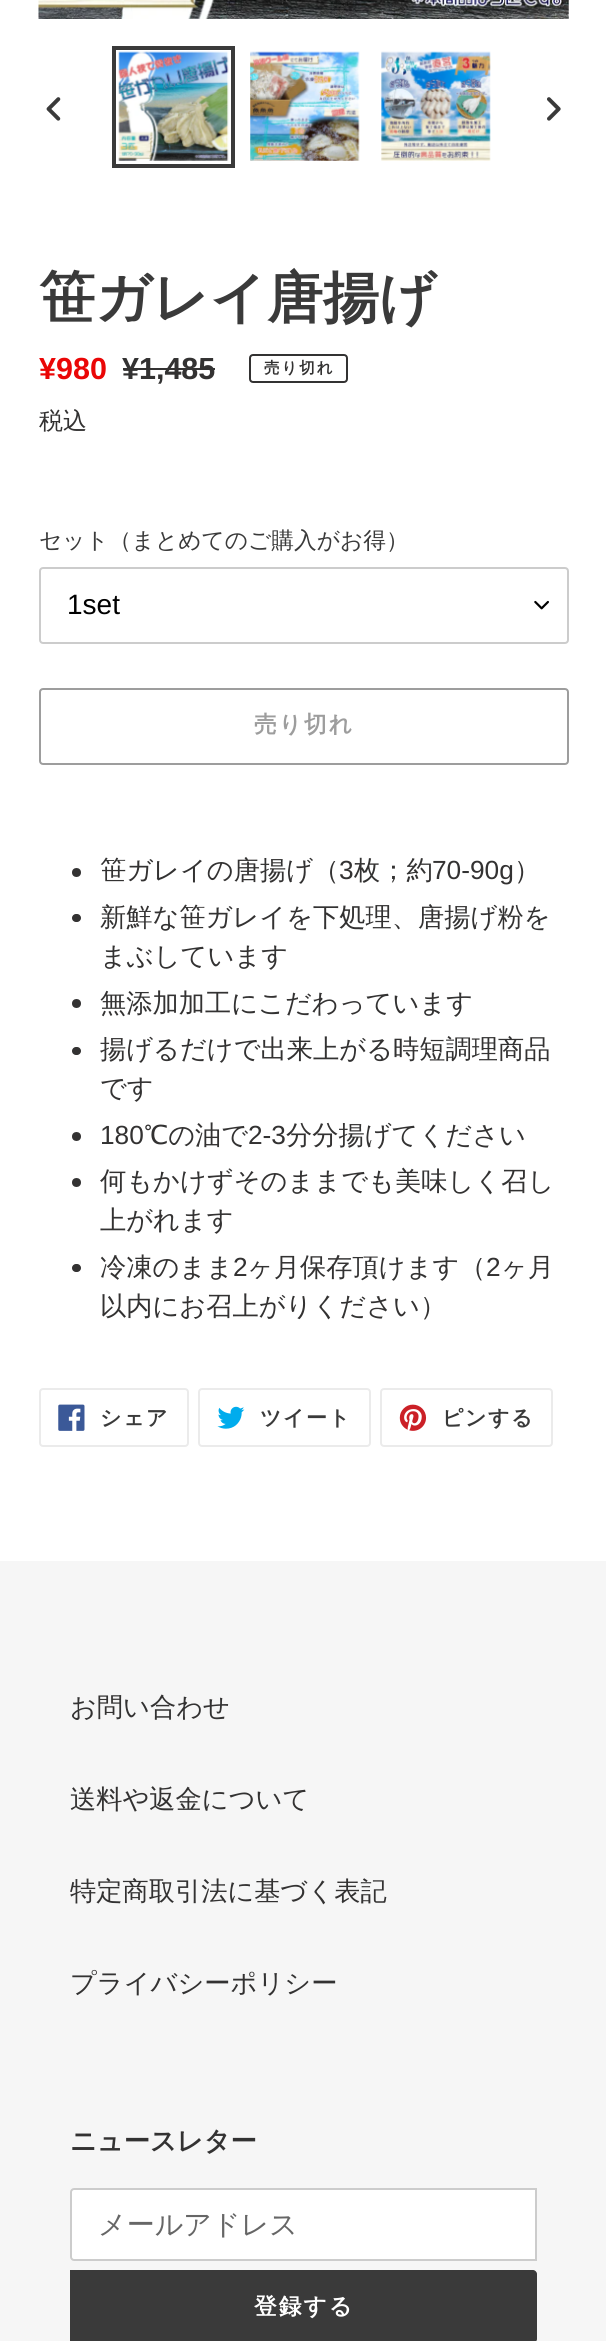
#include <cairo/cairo.h>
#include <math.h>
#include <stddef.h>

static cairo_t *cr;

static void use_color(int r, int g, int b) {
  cairo_set_source_rgb(cr, r / 255.0, g / 255.0, b / 255.0);
}

static void text(double x, double y, const char *s, const char *family, double size, int italic, int bold, int r, int g, int b) {
  cairo_select_font_face(cr, family, italic ? CAIRO_FONT_SLANT_ITALIC : CAIRO_FONT_SLANT_NORMAL,
    bold ? CAIRO_FONT_WEIGHT_BOLD : CAIRO_FONT_WEIGHT_NORMAL);
  cairo_set_font_size(cr, size);
  use_color(r, g, b);
  cairo_move_to(cr, x, y);
  cairo_show_text(cr, s);
}

static void spaced_text(double x, double y, const char *s, double letter, double word) {
  cairo_move_to(cr, x, y);
  while (*s) {
    char ch[5] = {0};
    int n = 0;
    do ch[n++] = *s++; while ((*s & 0xC0) == 0x80);
    cairo_show_text(cr, ch);
    cairo_rel_move_to(cr, letter + word * (*ch == ' '), 0);
  }
}

static void box(double x, double y, double w, double h, int r, int g, int b) {
  use_color(r, g, b);
  cairo_rectangle(cr, x, y, w, h);
  cairo_fill(cr);
}

static void round_rect(double x, double y, double w, double h, double r) {
  cairo_new_sub_path(cr);
  cairo_arc(cr, x + w - r, y + h - r, r, 0, M_PI / 2);
  cairo_arc(cr, x + r, y + h - r, r, M_PI / 2, M_PI);
  cairo_arc(cr, x + r, y + r, r, M_PI, 1.5 * M_PI);
  cairo_arc(cr, x + w - r, y + r, r, 1.5 * M_PI, 2 * M_PI);
  cairo_close_path(cr);
}

static void picture(const char *path, double x, double y, double w, double h) {
  cairo_surface_t *image = cairo_image_surface_create_from_png(path);
  cairo_save(cr);
  cairo_set_source_surface(cr, image, x, y);
  cairo_rectangle(cr, x, y, w, h);
  cairo_fill(cr);
  cairo_restore(cr);
  cairo_surface_destroy(image);
}

static void draw(void) {
  use_color(255, 255, 255);
  cairo_paint(cr);
  picture("img_01.png", 38, 0, 531, 19);
  picture("img_02.png", 46, 97, 15, 24);
  cairo_rectangle(cr, 114, 48, 119, 118);
  use_color(58, 58, 58);
  cairo_set_line_width(cr, 4);
  cairo_stroke(cr);
  picture("img_03.png", 118, 51, 111, 110);
  picture("img_04.png", 250, 51, 110, 110);
  picture("img_05.png", 381, 51, 110, 110);
  picture("img_06.png", 547, 97, 14, 24);
  box(123, 368, 92, 2, 51, 50, 50);
  round_rect(250, 355, 97, 27, 3);
  cairo_set_line_width(cr, 2);
  cairo_stroke(cr);
  picture("img_07.png", 534, 600, 15, 10);
  round_rect(40, 568, 528, 75, 3);
  use_color(204, 204, 204);
  cairo_stroke(cr);
  round_rect(40, 689, 528, 75, 3);
  use_color(157, 157, 157);
  cairo_stroke(cr);
  use_color(51, 50, 50);
  cairo_arc(cr, 76.5, 872.5, 4.5, 0, 2 * M_PI);
  cairo_fill(cr);
  round_rect(72, 914, 9, 8, 4);
  cairo_fill(cr);
  cairo_arc(cr, 76.5, 1003.5, 4.5, 0, 2 * M_PI);
  cairo_fill(cr);
  round_rect(72, 1047, 9, 8, 4);
  cairo_fill(cr);
  cairo_arc(cr, 76.5, 1136.5, 4.5, 0, 2 * M_PI);
  cairo_fill(cr);
  cairo_arc(cr, 76.5, 1182.5, 4.5, 0, 2 * M_PI);
  cairo_fill(cr);
  round_rect(72, 1264, 9, 8, 4);
  cairo_fill(cr);
  round_rect(40, 1389, 148, 57, 3);
  use_color(235, 235, 235);
  cairo_stroke(cr);
  picture("img_08.png", 58, 1404, 27, 27);
  round_rect(199, 1389, 171, 57, 3);
  cairo_stroke(cr);
  picture("img_09.png", 217, 1406, 28, 23);
  round_rect(381, 1389, 171, 57, 3);
  cairo_stroke(cr);
  picture("img_10.png", 399, 1404, 28, 27);
  box(0, 1561, 606, 780, 246, 246, 246);
  use_color(255, 255, 255);
  cairo_new_path(cr);
  cairo_move_to(cr, 74, 2189);
  cairo_line_to(cr, 536, 2189);
  cairo_line_to(cr, 536, 2260);
  cairo_line_to(cr, 74, 2260);
  cairo_curve_to(cr, 72.5, 2260, 71, 2258.5, 71, 2257);
  cairo_line_to(cr, 71, 2192);
  cairo_curve_to(cr, 71, 2190.5, 72.5, 2189, 74, 2189);
  cairo_close_path(cr);
  cairo_fill_preserve(cr);
  use_color(204, 204, 204);
  cairo_stroke(cr);
  use_color(58, 58, 58);
  cairo_new_path(cr);
  cairo_move_to(cr, 70, 2270);
  cairo_line_to(cr, 533, 2270);
  cairo_curve_to(cr, 535, 2270, 537, 2272, 537, 2274);
  cairo_line_to(cr, 537, 2339);
  cairo_curve_to(cr, 537, 2341, 535, 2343, 533, 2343);
  cairo_line_to(cr, 70, 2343);
  cairo_close_path(cr);
  cairo_fill(cr);
  text(39, 317, "笹ガレイ唐揚げ", "WenQuanYi Zen Hei", 56, 0, 1, 58, 58, 58);
  text(39, 379, "¥980", "Liberation Sans", 30.5, 0, 1, 234, 6, 6);
  text(122, 379, "¥1,485", "Liberation Sans", 30.5, 0, 1, 51, 50, 50);
  cairo_select_font_face(cr, "WenQuanYi Zen Hei", CAIRO_FONT_SLANT_NORMAL, CAIRO_FONT_WEIGHT_BOLD);
  cairo_set_font_size(cr, 15.5);
  spaced_text(264, 373, "売り切れ", 2, 0);
  text(39, 429, "税込", "WenQuanYi Zen Hei Medium", 24, 0, 0, 51, 50, 50);
  text(39, 548, "セット（まとめてのご購入がお得）", "WenQuanYi Zen Hei Medium", 22.75, 0, 0, 58, 58, 58);
  text(67, 614, "1set", "Liberation Sans", 28, 0, 0, 0, 0, 0);
  cairo_select_font_face(cr, "WenQuanYi Zen Hei", CAIRO_FONT_SLANT_NORMAL, CAIRO_FONT_WEIGHT_BOLD);
  cairo_set_font_size(cr, 22.75);
  use_color(157, 157, 157);
  spaced_text(254, 732, "売り切れ", 2, 0);
  text(100, 879, "笹ガレイの唐揚げ（", "WenQuanYi Zen Hei Medium", 26.25, 0, 0, 51, 50, 50);
  text(339, 879, "3", "Liberation Sans", 26.25, 0, 0, 51, 50, 50);
  text(354, 879, "枚；約", "WenQuanYi Zen Hei Medium", 26.25, 0, 0, 51, 50, 50);
  text(432, 879, "70-90g", "Liberation Sans", 26.25, 0, 0, 51, 50, 50);
  text(514, 879, "）", "WenQuanYi Zen Hei Medium", 26.25, 0, 0, 51, 50, 50);
  text(100, 926, "新鮮な笹ガレイを下処理、唐揚げ粉を", "WenQuanYi Zen Hei Medium", 26.25, 0, 0, 51, 50, 50);
  text(100, 965, "まぶしています", "WenQuanYi Zen Hei Medium", 26.25, 0, 0, 51, 50, 50);
  text(100, 1012, "無添加加工にこだわっています", "WenQuanYi Zen Hei Medium", 26.25, 0, 0, 51, 50, 50);
  text(100, 1058, "揚げるだけで出来上がる時短調理商品", "WenQuanYi Zen Hei Medium", 26.25, 0, 0, 51, 50, 50);
  text(100, 1097, "です", "WenQuanYi Zen Hei Medium", 26.25, 0, 0, 51, 50, 50);
  text(100, 1144, "180", "Liberation Sans", 26.25, 0, 0, 51, 50, 50);
  text(144, 1144, "℃の油で", "WenQuanYi Zen Hei Medium", 26.25, 0, 0, 51, 50, 50);
  text(248, 1144, "2-3", "Liberation Sans", 26.25, 0, 0, 51, 50, 50);
  text(286, 1144, "分分揚げてください", "WenQuanYi Zen Hei Medium", 26.25, 0, 0, 51, 50, 50);
  text(100, 1190, "何もかけずそのままでも美味しく召し", "WenQuanYi Zen Hei Medium", 26.25, 0, 0, 51, 50, 50);
  text(100, 1229, "上がれます", "WenQuanYi Zen Hei Medium", 26.25, 0, 0, 51, 50, 50);
  text(100, 1276, "冷凍のまま", "WenQuanYi Zen Hei Medium", 26.25, 0, 0, 51, 50, 50);
  text(233, 1276, "2", "Liberation Sans", 26.25, 0, 0, 51, 50, 50);
  text(247, 1276, "ヶ月保存頂けます（", "WenQuanYi Zen Hei Medium", 26.25, 0, 0, 51, 50, 50);
  text(486, 1276, "2", "Liberation Sans", 26.25, 0, 0, 51, 50, 50);
  text(501, 1276, "ヶ月", "WenQuanYi Zen Hei Medium", 26.25, 0, 0, 51, 50, 50);
  text(100, 1315, "以内にお召上がりください）", "WenQuanYi Zen Hei Medium", 26.25, 0, 0, 51, 50, 50);
  cairo_select_font_face(cr, "WenQuanYi Zen Hei", CAIRO_FONT_SLANT_NORMAL, CAIRO_FONT_WEIGHT_BOLD);
  cairo_set_font_size(cr, 21);
  use_color(58, 58, 58);
  spaced_text(100, 1425, "シェア", 1.5, 0);
  spaced_text(260, 1425, "ツイート", 1.5, 0);
  spaced_text(442, 1425, "ピンする", 1.5, 0);
  text(70, 1716, "お問い合わせ", "WenQuanYi Zen Hei Medium", 26.25, 0, 0, 51, 50, 50);
  text(70, 1808, "送料や返金について", "WenQuanYi Zen Hei Medium", 26.25, 0, 0, 51, 50, 50);
  text(70, 1900, "特定商取引法に基づく表記", "WenQuanYi Zen Hei Medium", 26.25, 0, 0, 51, 50, 50);
  text(70, 1992, "プライバシーポリシー", "WenQuanYi Zen Hei Medium", 26.25, 0, 0, 51, 50, 50);
  text(70, 2150, "ニュースレター", "WenQuanYi Zen Hei", 26.25, 0, 1, 51, 50, 50);
  text(98, 2234, "メールアドレス", "WenQuanYi Zen Hei Medium", 28, 0, 0, 102, 102, 102);
  cairo_select_font_face(cr, "WenQuanYi Zen Hei", CAIRO_FONT_SLANT_NORMAL, CAIRO_FONT_WEIGHT_BOLD);
  cairo_set_font_size(cr, 22.75);
  use_color(255, 255, 255);
  spaced_text(254, 2314, "登録する", 2, 0);
}

int main(void) {
  cairo_surface_t *surface = cairo_image_surface_create(CAIRO_FORMAT_RGB24, 606, 2341);
  cr = cairo_create(surface);
  cairo_font_options_t *options = cairo_font_options_create();
  cairo_font_options_set_hint_metrics(options, CAIRO_HINT_METRICS_OFF);
  cairo_font_options_set_hint_style(options, CAIRO_HINT_STYLE_NONE);
  cairo_set_font_options(cr, options);
  cairo_set_miter_limit(cr, 4);
  draw();
  cairo_surface_write_to_png(surface, "out.png");
  cairo_font_options_destroy(options);
  cairo_destroy(cr);
  cairo_surface_destroy(surface);
  return 0;
}
